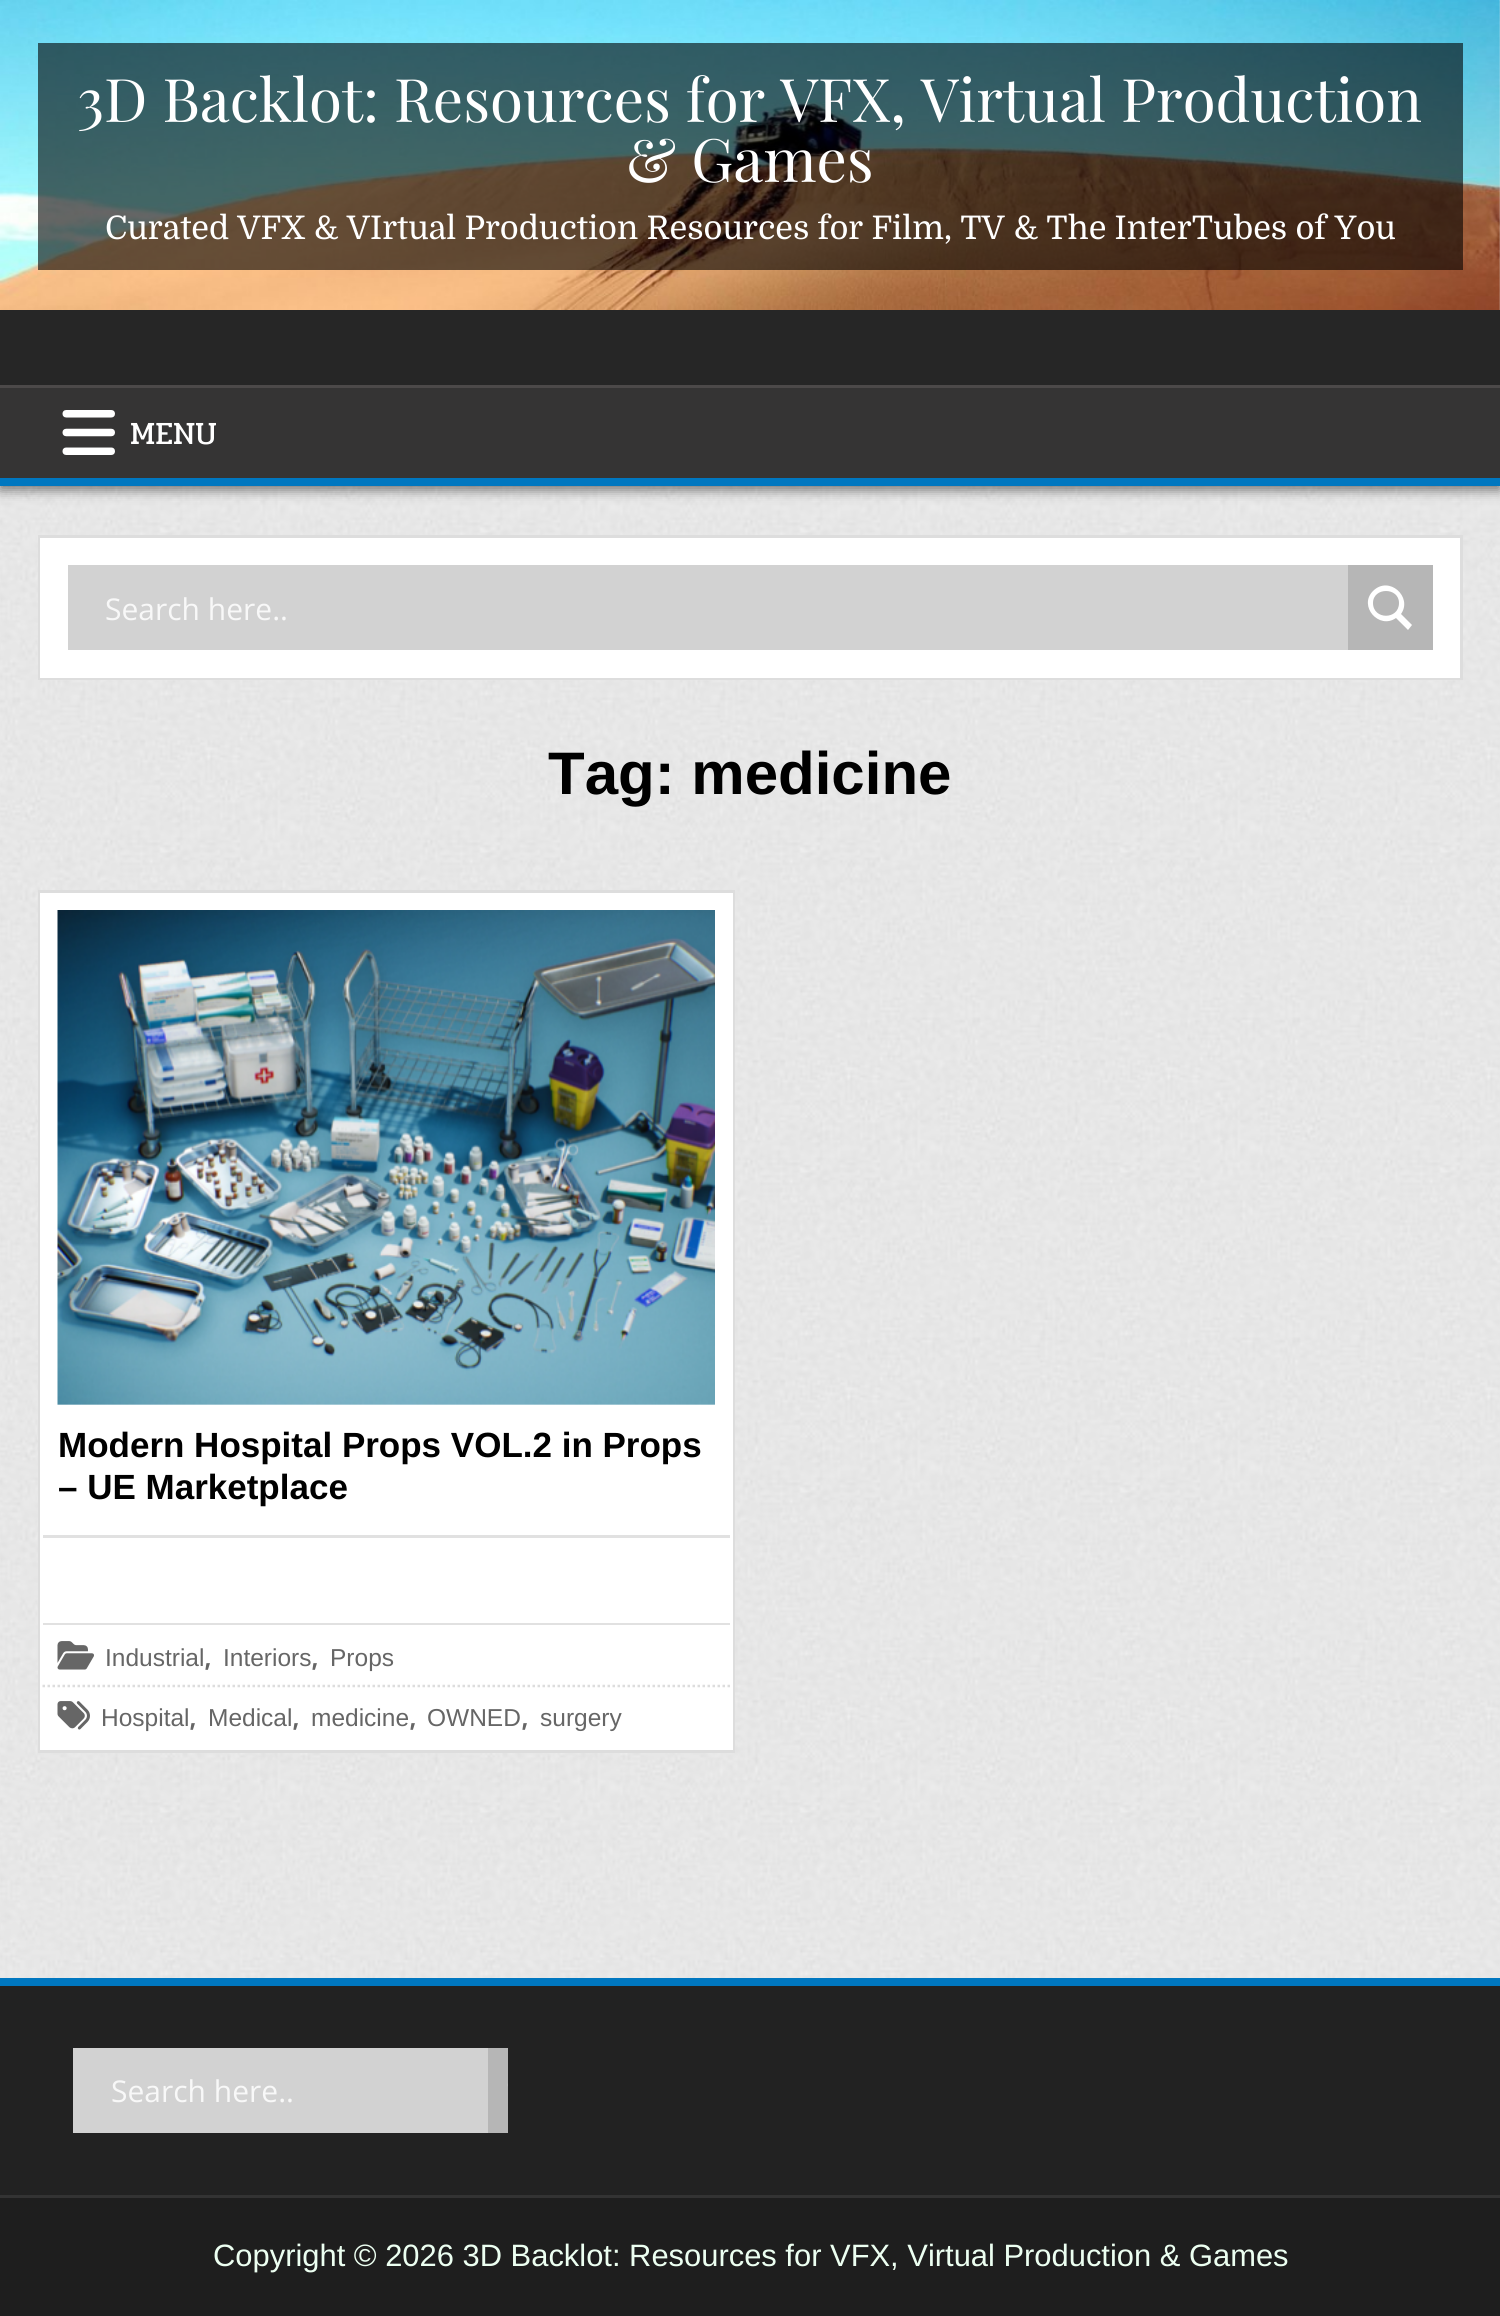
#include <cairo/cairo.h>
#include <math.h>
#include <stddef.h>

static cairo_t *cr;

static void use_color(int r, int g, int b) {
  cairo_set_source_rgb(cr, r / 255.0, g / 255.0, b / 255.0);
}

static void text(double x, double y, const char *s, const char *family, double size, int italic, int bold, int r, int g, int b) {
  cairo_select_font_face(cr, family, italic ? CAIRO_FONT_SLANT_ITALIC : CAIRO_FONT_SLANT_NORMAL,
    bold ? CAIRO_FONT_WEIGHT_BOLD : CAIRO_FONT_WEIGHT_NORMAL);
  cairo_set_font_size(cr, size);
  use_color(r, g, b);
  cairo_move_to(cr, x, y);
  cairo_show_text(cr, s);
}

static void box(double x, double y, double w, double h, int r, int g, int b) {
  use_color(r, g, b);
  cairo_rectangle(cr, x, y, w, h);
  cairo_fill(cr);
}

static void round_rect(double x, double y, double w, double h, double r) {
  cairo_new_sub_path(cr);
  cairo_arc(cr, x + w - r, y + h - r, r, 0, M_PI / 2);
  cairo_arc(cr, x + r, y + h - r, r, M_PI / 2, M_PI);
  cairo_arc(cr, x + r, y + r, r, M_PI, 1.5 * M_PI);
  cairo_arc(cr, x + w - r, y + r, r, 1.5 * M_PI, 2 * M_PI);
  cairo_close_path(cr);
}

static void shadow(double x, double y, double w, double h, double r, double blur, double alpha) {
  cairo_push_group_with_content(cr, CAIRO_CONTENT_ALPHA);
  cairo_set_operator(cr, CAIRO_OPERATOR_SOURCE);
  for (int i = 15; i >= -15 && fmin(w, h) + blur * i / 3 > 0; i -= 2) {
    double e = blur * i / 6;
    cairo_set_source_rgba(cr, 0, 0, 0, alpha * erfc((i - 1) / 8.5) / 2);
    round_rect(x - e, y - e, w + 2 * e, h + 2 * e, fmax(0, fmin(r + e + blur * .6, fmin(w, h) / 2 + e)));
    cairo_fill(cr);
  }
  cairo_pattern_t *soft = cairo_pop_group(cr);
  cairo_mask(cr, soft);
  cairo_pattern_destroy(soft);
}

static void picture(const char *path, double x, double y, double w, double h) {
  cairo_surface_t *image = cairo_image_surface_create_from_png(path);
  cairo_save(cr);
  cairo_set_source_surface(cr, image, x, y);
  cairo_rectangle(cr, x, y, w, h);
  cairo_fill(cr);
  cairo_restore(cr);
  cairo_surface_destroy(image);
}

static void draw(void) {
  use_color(255, 255, 255);
  cairo_paint(cr);
  picture("img_01.png", 0, 1, 1500, 1977);
  picture("img_02.png", 0, 0, 1500, 310);
  cairo_set_source_rgba(cr, 0, 0, 0, 0.6);
  cairo_rectangle(cr, 38, 43, 1425, 227);
  cairo_fill(cr);
  use_color(0, 0, 0);
  shadow(0, 390, 1500, 100, 0, 6, 0.5);
  box(0, 310, 1500, 75, 38, 38, 38);
  box(0, 388, 1500, 90, 53, 52, 52);
  box(0, 385, 1500, 3, 76, 73, 73);
  box(0, 478, 1500, 8, 0, 119, 192);
  picture("img_03.png", 62, 410, 53, 45);
  box(43, 541, 1414, 134, 255, 255, 255);
  cairo_rectangle(cr, 39.5, 536.5, 1422, 142);
  use_color(221, 221, 221);
  cairo_set_line_width(cr, 3);
  cairo_stroke(cr);
  cairo_rectangle(cr, 41.5, 539.5, 1417, 137);
  use_color(255, 255, 255);
  cairo_stroke(cr);
  box(68, 565, 1280, 85, 210, 210, 210);
  box(1348, 565, 85, 85, 182, 182, 182);
  use_color(255, 255, 255);
  cairo_new_path(cr);
  cairo_move_to(cr, 1412, 625);
  cairo_line_to(cr, 1401, 614);
  cairo_curve_to(cr, 1413, 597, 1389, 575, 1373, 591);
  cairo_curve_to(cr, 1358, 606, 1379, 630, 1396, 618);
  cairo_line_to(cr, 1408, 630);
  cairo_close_path(cr);
  cairo_move_to(cr, 1373, 603);
  cairo_curve_to(cr, 1373, 587, 1399, 587, 1399, 603);
  cairo_curve_to(cr, 1399, 620, 1373, 620, 1373, 603);
  cairo_close_path(cr);
  cairo_fill(cr);
  box(43, 896, 687, 851, 255, 255, 255);
  cairo_rectangle(cr, 39.5, 891.5, 694, 860);
  use_color(221, 221, 221);
  cairo_stroke(cr);
  cairo_rectangle(cr, 41.5, 894.5, 690, 854);
  use_color(255, 255, 255);
  cairo_stroke(cr);
  picture("img_04.png", 57, 910, 658, 495);
  box(43, 1535, 687, 3, 225, 225, 225);
  box(43, 1623, 687, 2, 225, 225, 225);
  cairo_new_path(cr);
  cairo_move_to(cr, 42.5, 1686);
  cairo_line_to(cr, 730, 1686);
  use_color(221, 221, 221);
  cairo_set_line_width(cr, 2.5);
  cairo_set_dash(cr, (double[]){2.5, 2.5}, 2, 0);
  cairo_stroke(cr);
  picture("img_05.png", 57, 1641, 37, 29);
  picture("img_06.png", 57, 1701, 33, 29);
  box(0, 1986, 1500, 209, 34, 34, 34);
  box(0, 1978, 1500, 8, 0, 119, 192);
  box(73, 2048, 415, 85, 210, 210, 210);
  box(488, 2048, 20, 85, 182, 182, 182);
  cairo_save(cr);
  cairo_rectangle(cr, 503, 2048, 5, 85);
  cairo_clip(cr);
  use_color(255, 255, 255);
  cairo_new_path(cr);
  cairo_move_to(cr, 552, 2108);
  cairo_line_to(cr, 541, 2096);
  cairo_curve_to(cr, 553, 2079, 529, 2057, 513, 2073);
  cairo_curve_to(cr, 498, 2089, 519, 2112, 536, 2101);
  cairo_line_to(cr, 548, 2112);
  cairo_close_path(cr);
  cairo_move_to(cr, 513, 2086);
  cairo_curve_to(cr, 513, 2069, 539, 2069, 539, 2086);
  cairo_curve_to(cr, 539, 2102, 513, 2102, 513, 2086);
  cairo_close_path(cr);
  cairo_fill(cr);
  cairo_restore(cr);
  box(0, 2198, 1500, 118, 30, 30, 30);
  box(0, 2195, 1500, 3, 51, 51, 51);
  text(77, 122, "3D Backlot: Resources for VFX, Virtual Production", "Playfair Display", 60, 0, 0, 255, 255, 255);
  text(626, 182, "& Games", "Playfair Display", 60, 0, 0, 255, 255, 255);
  text(105, 239, "Curated VFX & VIrtual Production Resources for Film, TV & The InterTubes of You", "Domine", 32.5, 0, 0, 255, 255, 255);
  text(130, 444, "MENU", "Pridi", 32.5, 0, 0, 255, 255, 255);
  text(105, 620, "Search here..", "Open Sans", 30, 0, 0, 248, 248, 248);
  text(548, 794, "Tag: medicine", "Liberation Sans", 60, 0, 1, 0, 0, 0);
  text(58, 1457, "Modern Hospital Props VOL.2 in Props", "Liberation Sans", 35, 0, 1, 0, 0, 0);
  text(58, 1499, "– UE Marketplace", "Liberation Sans", 35, 0, 1, 0, 0, 0);
  text(105, 1666, "Industrial", "Liberation Sans", 24.5, 0, 0, 102, 102, 102);
  text(204, 1666, ",", "Pridi", 32.5, 0, 0, 102, 102, 102);
  text(223, 1666, "Interiors", "Liberation Sans", 24.5, 0, 0, 102, 102, 102);
  text(311, 1666, ",", "Pridi", 32.5, 0, 0, 102, 102, 102);
  text(330, 1666, "Props", "Liberation Sans", 24.5, 0, 0, 102, 102, 102);
  text(101, 1726, "Hospital", "Liberation Sans", 24.5, 0, 0, 102, 102, 102);
  text(189, 1726, ",", "Pridi", 32.5, 0, 0, 102, 102, 102);
  text(208, 1726, "Medical", "Liberation Sans", 24.5, 0, 0, 102, 102, 102);
  text(292, 1726, ",", "Pridi", 32.5, 0, 0, 102, 102, 102);
  text(311, 1726, "medicine", "Liberation Sans", 24.5, 0, 0, 102, 102, 102);
  text(409, 1726, ",", "Pridi", 32.5, 0, 0, 102, 102, 102);
  text(427, 1726, "OWNED", "Liberation Sans", 24.5, 0, 0, 102, 102, 102);
  text(521, 1726, ",", "Pridi", 32.5, 0, 0, 102, 102, 102);
  text(540, 1726, "surgery", "Liberation Sans", 24.5, 0, 0, 102, 102, 102);
  text(111, 2102, "Search here..", "Open Sans", 30, 0, 0, 248, 248, 248);
  text(213, 2266, "Copyright © 2026 3D Backlot: Resources for VFX, Virtual Production & Games", "Liberation Sans", 30.9, 0, 0, 236, 255, 241);
}

int main(void) {
  cairo_surface_t *surface = cairo_image_surface_create(CAIRO_FORMAT_RGB24, 1500, 2316);
  cr = cairo_create(surface);
  cairo_font_options_t *options = cairo_font_options_create();
  cairo_font_options_set_hint_metrics(options, CAIRO_HINT_METRICS_OFF);
  cairo_font_options_set_hint_style(options, CAIRO_HINT_STYLE_NONE);
  cairo_set_font_options(cr, options);
  cairo_set_miter_limit(cr, 4);
  draw();
  cairo_surface_write_to_png(surface, "out.png");
  cairo_font_options_destroy(options);
  cairo_destroy(cr);
  cairo_surface_destroy(surface);
  return 0;
}
